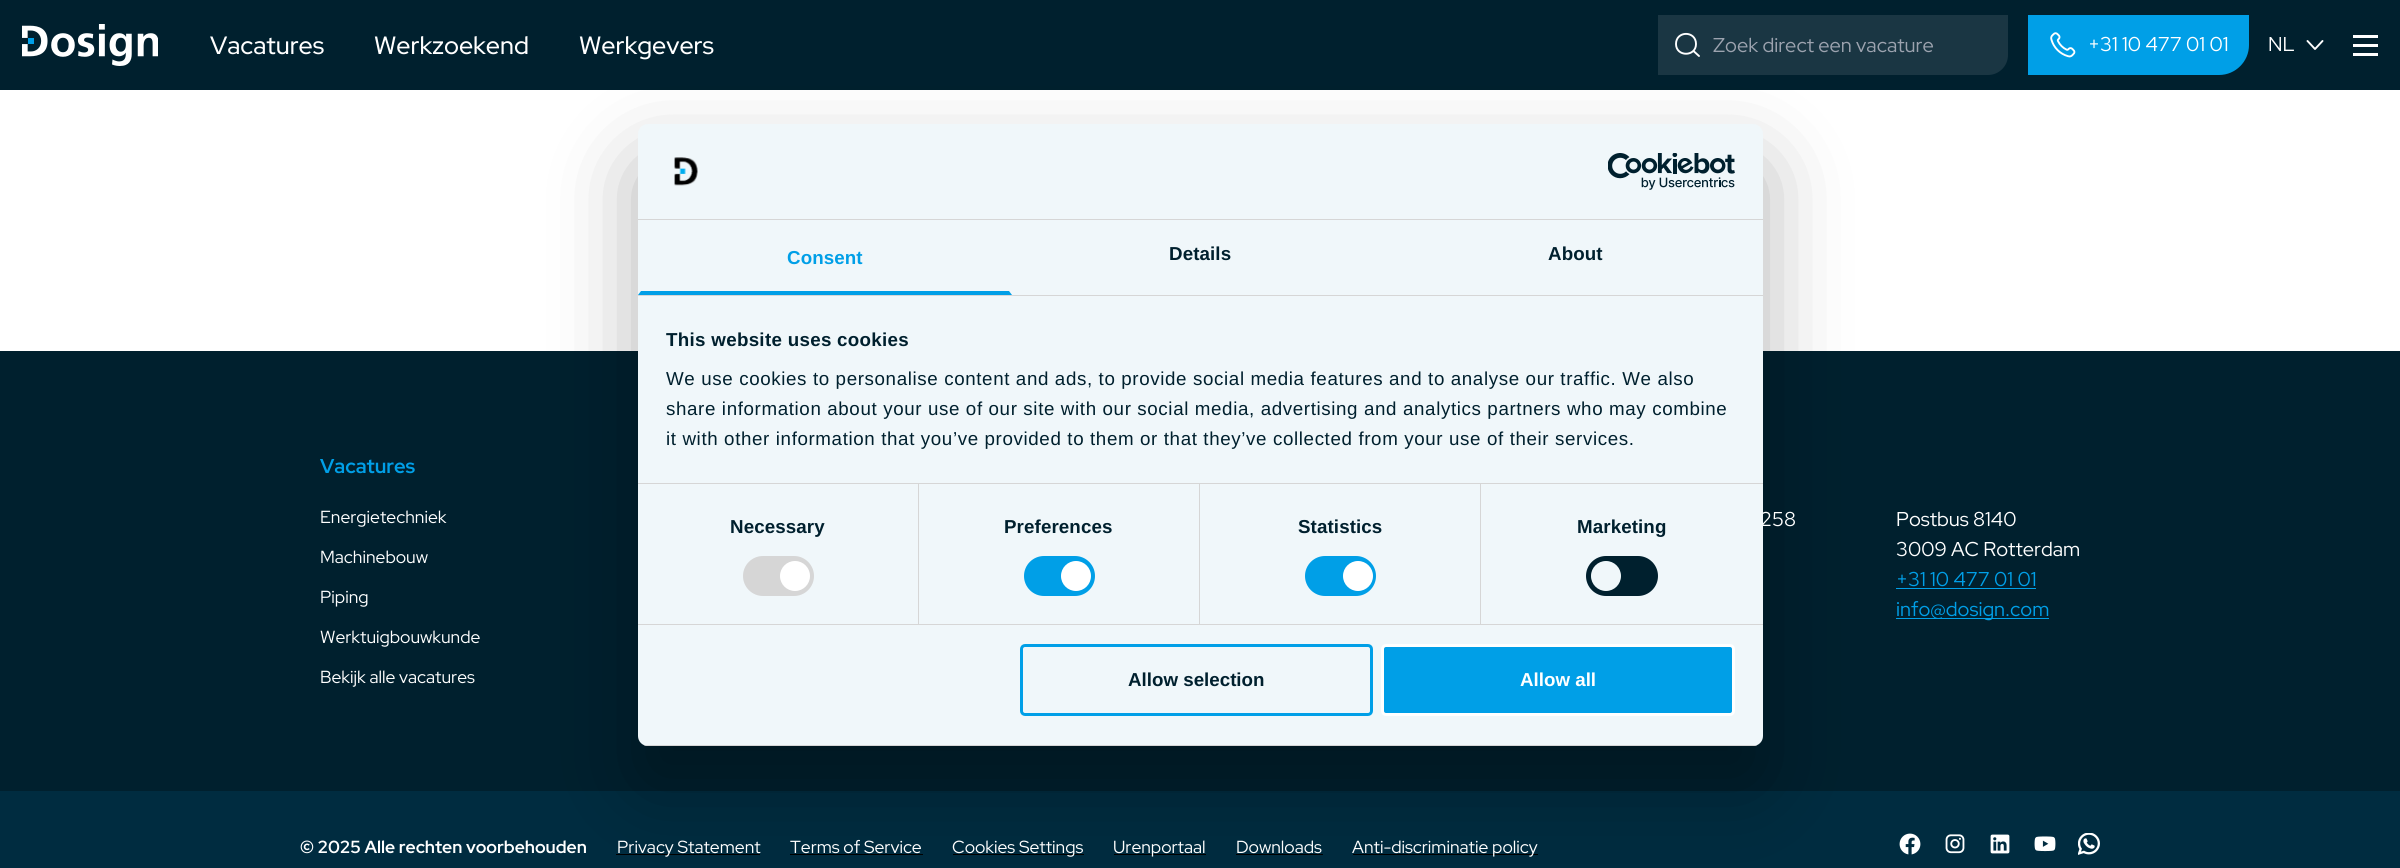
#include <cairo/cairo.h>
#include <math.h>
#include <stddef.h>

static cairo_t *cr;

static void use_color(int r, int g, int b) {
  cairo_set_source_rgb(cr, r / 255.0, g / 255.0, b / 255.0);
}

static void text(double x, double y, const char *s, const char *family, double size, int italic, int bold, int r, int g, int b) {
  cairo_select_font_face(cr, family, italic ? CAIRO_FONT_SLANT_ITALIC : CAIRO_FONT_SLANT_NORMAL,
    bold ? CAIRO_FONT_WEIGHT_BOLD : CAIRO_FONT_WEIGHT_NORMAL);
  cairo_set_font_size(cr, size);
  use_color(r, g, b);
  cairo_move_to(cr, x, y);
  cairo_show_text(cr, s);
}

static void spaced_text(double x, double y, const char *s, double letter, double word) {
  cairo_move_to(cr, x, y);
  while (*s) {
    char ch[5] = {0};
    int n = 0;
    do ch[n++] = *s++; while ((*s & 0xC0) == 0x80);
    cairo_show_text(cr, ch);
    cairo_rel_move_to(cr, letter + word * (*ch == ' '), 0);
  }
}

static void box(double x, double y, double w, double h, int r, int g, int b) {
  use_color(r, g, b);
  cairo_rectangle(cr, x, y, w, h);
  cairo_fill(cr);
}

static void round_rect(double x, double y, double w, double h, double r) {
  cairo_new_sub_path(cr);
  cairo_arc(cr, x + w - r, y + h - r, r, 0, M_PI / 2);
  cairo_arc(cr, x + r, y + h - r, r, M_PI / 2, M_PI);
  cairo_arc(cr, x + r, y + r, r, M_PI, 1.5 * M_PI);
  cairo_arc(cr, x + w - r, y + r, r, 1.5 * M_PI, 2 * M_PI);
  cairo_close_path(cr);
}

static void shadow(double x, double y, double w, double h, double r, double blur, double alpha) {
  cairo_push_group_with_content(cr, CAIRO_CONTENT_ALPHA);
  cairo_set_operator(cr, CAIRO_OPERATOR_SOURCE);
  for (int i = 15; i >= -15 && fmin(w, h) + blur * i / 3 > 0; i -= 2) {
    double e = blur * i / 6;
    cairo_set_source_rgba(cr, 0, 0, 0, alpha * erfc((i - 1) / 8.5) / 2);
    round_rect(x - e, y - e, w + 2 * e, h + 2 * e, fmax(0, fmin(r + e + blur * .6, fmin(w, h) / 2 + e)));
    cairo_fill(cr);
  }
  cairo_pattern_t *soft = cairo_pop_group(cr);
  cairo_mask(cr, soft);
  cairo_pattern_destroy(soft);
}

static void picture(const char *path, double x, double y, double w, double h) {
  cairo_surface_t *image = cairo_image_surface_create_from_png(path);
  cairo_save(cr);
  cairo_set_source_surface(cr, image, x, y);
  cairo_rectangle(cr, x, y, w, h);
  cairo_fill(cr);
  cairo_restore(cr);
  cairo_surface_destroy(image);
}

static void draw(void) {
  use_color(255, 255, 255);
  cairo_paint(cr);
  box(0, 0, 2400, 90, 0, 32, 46);
  picture("img_01.png", 22, 24, 136, 42);
  use_color(26, 54, 67);
  cairo_new_path(cr);
  cairo_move_to(cr, 1658, 15);
  cairo_line_to(cr, 2008, 15);
  cairo_line_to(cr, 2008, 55);
  cairo_curve_to(cr, 2008, 66, 1999, 75, 1988, 75);
  cairo_line_to(cr, 1658, 75);
  cairo_close_path(cr);
  cairo_fill(cr);
  cairo_new_path(cr);
  cairo_move_to(cr, 1699, 56);
  cairo_line_to(cr, 1693.5, 51);
  cairo_move_to(cr, 1696, 44);
  cairo_curve_to(cr, 1696, 57, 1676, 57, 1676, 44);
  cairo_curve_to(cr, 1676, 30.5, 1696, 30.5, 1696, 44);
  cairo_close_path(cr);
  use_color(255, 255, 255);
  cairo_set_line_width(cr, 1.9);
  cairo_set_line_cap(cr, CAIRO_LINE_CAP_ROUND);
  cairo_set_line_join(cr, CAIRO_LINE_JOIN_ROUND);
  cairo_stroke(cr);
  use_color(0, 159, 231);
  cairo_new_path(cr);
  cairo_move_to(cr, 2028, 15);
  cairo_line_to(cr, 2249, 15);
  cairo_line_to(cr, 2249, 45);
  cairo_curve_to(cr, 2249, 61.5, 2235.5, 75, 2219, 75);
  cairo_line_to(cr, 2028, 75);
  cairo_close_path(cr);
  cairo_fill(cr);
  picture("img_02.png", 2050, 32, 26, 26);
  cairo_new_path(cr);
  cairo_move_to(cr, 2307.5, 41);
  cairo_line_to(cr, 2315, 49);
  cairo_line_to(cr, 2322.5, 41);
  use_color(255, 255, 255);
  cairo_stroke(cr);
  box(2353, 35, 25, 3, 255, 255, 255);
  box(2353, 44, 25, 3, 255, 255, 255);
  box(2353, 53, 25, 3, 255, 255, 255);
  box(0, 351, 2400, 440, 0, 32, 46);
  box(0, 791, 2400, 77, 0, 44, 64);
  box(616, 854, 144, 1, 0, 0, 0);
  box(790, 854, 133, 1, 0, 0, 0);
  box(953, 854, 131, 1, 0, 0, 0);
  box(1114, 854, 92, 1, 0, 0, 0);
  box(1236, 854, 87, 1, 0, 0, 0);
  box(1353, 854, 185, 1, 0, 0, 0);
  use_color(0, 0, 0);
  shadow(638, 164, 1125, 622, 10, 42.5, 0.3);
  box(1896, 588, 140, 1, 0, 159, 231);
  box(1896, 618, 153, 1, 0, 159, 231);
  picture("img_05.png", 1899, 833, 22, 22);
  picture("img_06.png", 1945, 834, 20, 20);
  picture("img_07.png", 1990, 834, 20, 20);
  picture("img_08.png", 2034, 836, 22, 16);
  picture("img_09.png", 2078, 833, 22, 22);
  text(210, 54, "Vacatures", "Red Hat Display Medium", 25, 0, 0, 255, 255, 255);
  text(374, 54, "Werkzoekend", "Red Hat Display Medium", 25, 0, 0, 255, 255, 255);
  text(579, 54, "Werkgevers", "Red Hat Display Medium", 25, 0, 0, 255, 255, 255);
  text(1713, 52, "Zoek direct een vacature", "Red Hat Display", 20, 0, 0, 156, 163, 175);
  text(2088, 51, "+31 10 477 01 01", "Red Hat Display", 20, 0, 0, 255, 255, 255);
  text(2268, 51, "NL", "Red Hat Display", 20, 0, 0, 255, 255, 255);
  text(320, 473, "Vacatures", "Red Hat Display", 20, 0, 1, 0, 159, 231);
  text(320, 523, "Energietechniek", "Red Hat Display", 17.5, 0, 0, 255, 255, 255);
  text(320, 563, "Machinebouw", "Red Hat Display", 17.5, 0, 0, 255, 255, 255);
  text(320, 603, "Piping", "Red Hat Display", 17.5, 0, 0, 255, 255, 255);
  text(320, 643, "Werktuigbouwkunde", "Red Hat Display", 17.5, 0, 0, 255, 255, 255);
  text(320, 683, "Bekijk alle vacatures", "Red Hat Display", 17.5, 0, 0, 255, 255, 255);
  text(1760, 526, "258", "Red Hat Display", 20, 0, 0, 255, 255, 255);
  use_color(240, 247, 250);
  round_rect(638, 124, 1125, 622, 10);
  cairo_fill(cr);
  use_color(0, 159, 231);
  round_rect(1382.5, 645.5, 351, 69, 3.5);
  cairo_fill_preserve(cr);
  use_color(255, 255, 255);
  cairo_set_line_width(cr, 3);
  cairo_set_line_cap(cr, CAIRO_LINE_CAP_BUTT);
  cairo_set_line_join(cr, CAIRO_LINE_JOIN_MITER);
  cairo_stroke(cr);
  text(1520, 686, "Allow all", "Liberation Sans", 18.75, 0, 1, 255, 255, 255);
  round_rect(1021.5, 645.5, 350, 69, 3.5);
  use_color(0, 159, 231);
  cairo_stroke(cr);
  text(1128, 686, "Allow selection", "Liberation Sans", 18.75, 0, 1, 0, 32, 46);
  cairo_save(cr);
  round_rect(638, 124, 1125, 622, 10);
  cairo_clip(cr);
  box(638, 745, 1125, 1, 214, 214, 214);
  cairo_restore(cr);
  round_rect(1586, 556, 72, 40, 20);
  cairo_fill(cr);
  use_color(240, 247, 250);
  cairo_arc(cr, 1606, 576, 15, 0, 2 * M_PI);
  cairo_fill(cr);
  use_color(0, 159, 231);
  round_rect(1305, 556, 71, 40, 20);
  cairo_fill(cr);
  use_color(255, 255, 255);
  cairo_arc(cr, 1358, 576, 15, 0, 2 * M_PI);
  cairo_fill(cr);
  use_color(0, 159, 231);
  round_rect(1024, 556, 71, 40, 20);
  cairo_fill(cr);
  use_color(255, 255, 255);
  cairo_arc(cr, 1076, 576, 15, 0, 2 * M_PI);
  cairo_fill(cr);
  use_color(214, 214, 214);
  round_rect(743, 556, 71, 40, 20);
  cairo_fill(cr);
  use_color(255, 255, 255);
  cairo_arc(cr, 795, 576, 15, 0, 2 * M_PI);
  cairo_fill(cr);
  cairo_select_font_face(cr, "Liberation Sans", CAIRO_FONT_SLANT_NORMAL, CAIRO_FONT_WEIGHT_NORMAL);
  use_color(0, 32, 46);
  spaced_text(666, 445, "it with other information that you’ve provided to them or that they’ve collected from your use of their services.", 0.62, 0);
  spaced_text(666, 415, "share information about your use of our site with our social media, advertising and analytics partners who may combine", 0.62, 0);
  spaced_text(666, 385, "We use cookies to personalise content and ads, to provide social media features and to analyse our traffic. We also", 0.62, 0);
  cairo_select_font_face(cr, "Liberation Sans", CAIRO_FONT_SLANT_NORMAL, CAIRO_FONT_WEIGHT_BOLD);
  spaced_text(666, 346, "This website uses cookies", 0.3, 0);
  box(638, 483, 1125, 1, 214, 214, 214);
  use_color(0, 32, 46);
  spaced_text(1548, 260, "About", 0.1, 0);
  spaced_text(1169, 260, "Details", 0.1, 0);
  use_color(0, 159, 231);
  spaced_text(787, 264, "Consent", 0.1, 0);
  cairo_new_path(cr);
  cairo_move_to(cr, 1012, 295);
  cairo_line_to(cr, 638, 295);
  cairo_line_to(cr, 641, 291);
  cairo_line_to(cr, 1009, 291);
  cairo_close_path(cr);
  cairo_fill(cr);
  box(638, 295, 1125, 1, 214, 214, 214);
  use_color(0, 32, 46);
  spaced_text(1577, 533, "Marketing", 0.1, 0);
  spaced_text(1298, 533, "Statistics", 0.1, 0);
  box(1480, 484, 1, 140, 214, 214, 214);
  use_color(0, 32, 46);
  spaced_text(1004, 533, "Preferences", 0.1, 0);
  box(1199, 484, 1, 140, 214, 214, 214);
  use_color(0, 32, 46);
  spaced_text(730, 533, "Necessary", 0.1, 0);
  box(918, 484, 1, 140, 214, 214, 214);
  box(638, 624, 1125, 1, 214, 214, 214);
  picture("img_04.png", 1608, 153, 127, 37);
  picture("img_03.png", 674, 157, 24, 29);
  box(638, 219, 1125, 1, 214, 214, 214);
  text(1896, 526, "Postbus 8140", "Red Hat Display", 20, 0, 0, 255, 255, 255);
  text(1896, 556, "3009 AC Rotterdam", "Red Hat Display", 20, 0, 0, 255, 255, 255);
  text(1896, 586, "+31 10 477 01 01", "Red Hat Display", 20, 0, 0, 0, 159, 231);
  text(1896, 616, "info@dosign.com", "Red Hat Display", 20, 0, 0, 0, 159, 231);
  text(300, 853, "© 2025 Alle rechten voorbehouden", "Red Hat Display", 17.5, 0, 1, 255, 255, 255);
  text(617, 853, "Privacy Statement", "Red Hat Display", 17.5, 0, 0, 255, 255, 255);
  text(790, 853, "Terms of Service", "Red Hat Display", 17.5, 0, 0, 255, 255, 255);
  text(952, 853, "Cookies Settings", "Red Hat Display", 17.5, 0, 0, 255, 255, 255);
  text(1113, 853, "Urenportaal", "Red Hat Display", 17.5, 0, 0, 255, 255, 255);
  text(1236, 853, "Downloads", "Red Hat Display", 17.5, 0, 0, 255, 255, 255);
  text(1352, 853, "Anti-discriminatie policy", "Red Hat Display", 17.5, 0, 0, 255, 255, 255);
}

int main(void) {
  cairo_surface_t *surface = cairo_image_surface_create(CAIRO_FORMAT_RGB24, 2400, 868);
  cr = cairo_create(surface);
  cairo_font_options_t *options = cairo_font_options_create();
  cairo_font_options_set_hint_metrics(options, CAIRO_HINT_METRICS_OFF);
  cairo_font_options_set_hint_style(options, CAIRO_HINT_STYLE_NONE);
  cairo_set_font_options(cr, options);
  cairo_set_miter_limit(cr, 4);
  draw();
  cairo_surface_write_to_png(surface, "out.png");
  cairo_font_options_destroy(options);
  cairo_destroy(cr);
  cairo_surface_destroy(surface);
  return 0;
}
